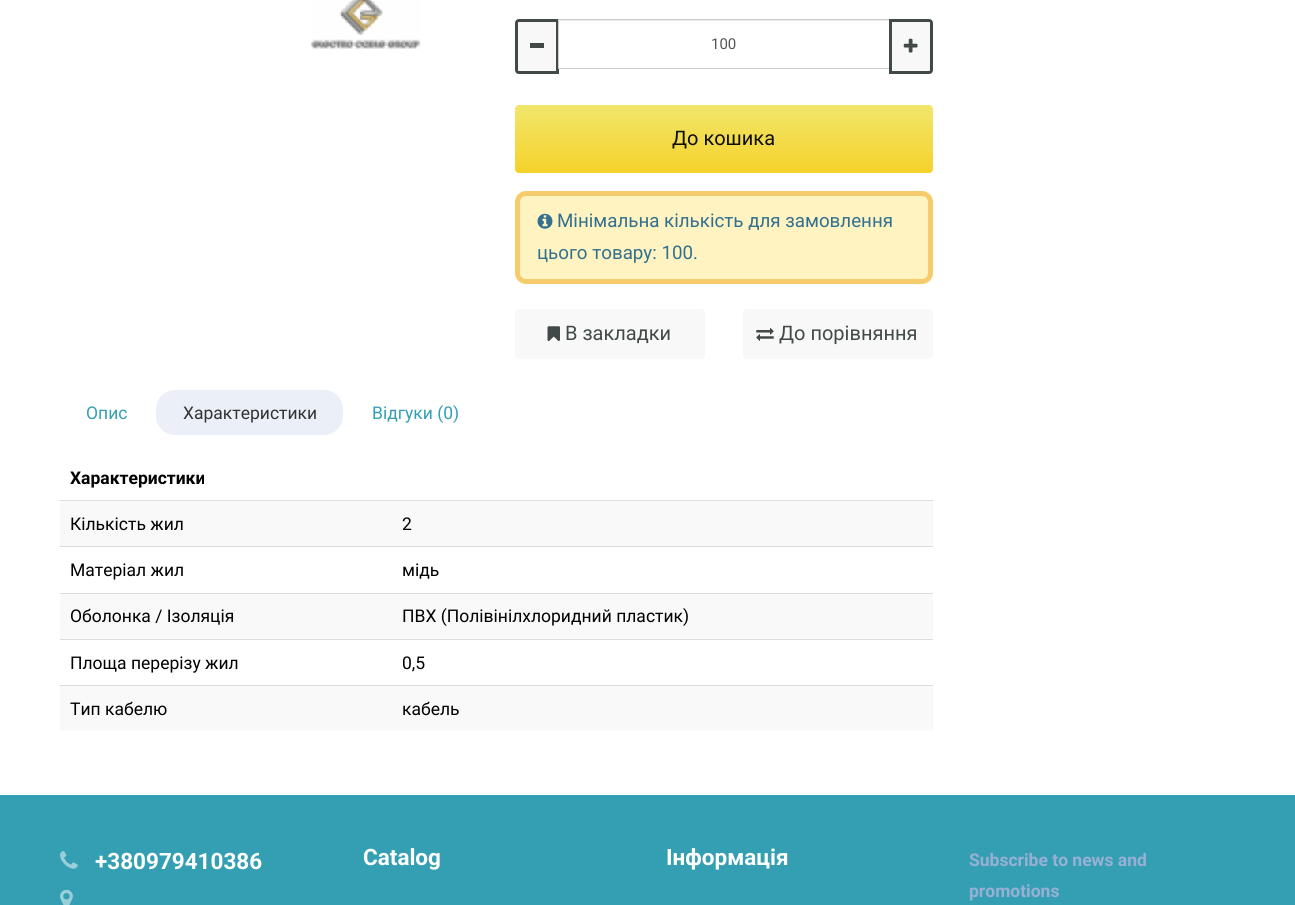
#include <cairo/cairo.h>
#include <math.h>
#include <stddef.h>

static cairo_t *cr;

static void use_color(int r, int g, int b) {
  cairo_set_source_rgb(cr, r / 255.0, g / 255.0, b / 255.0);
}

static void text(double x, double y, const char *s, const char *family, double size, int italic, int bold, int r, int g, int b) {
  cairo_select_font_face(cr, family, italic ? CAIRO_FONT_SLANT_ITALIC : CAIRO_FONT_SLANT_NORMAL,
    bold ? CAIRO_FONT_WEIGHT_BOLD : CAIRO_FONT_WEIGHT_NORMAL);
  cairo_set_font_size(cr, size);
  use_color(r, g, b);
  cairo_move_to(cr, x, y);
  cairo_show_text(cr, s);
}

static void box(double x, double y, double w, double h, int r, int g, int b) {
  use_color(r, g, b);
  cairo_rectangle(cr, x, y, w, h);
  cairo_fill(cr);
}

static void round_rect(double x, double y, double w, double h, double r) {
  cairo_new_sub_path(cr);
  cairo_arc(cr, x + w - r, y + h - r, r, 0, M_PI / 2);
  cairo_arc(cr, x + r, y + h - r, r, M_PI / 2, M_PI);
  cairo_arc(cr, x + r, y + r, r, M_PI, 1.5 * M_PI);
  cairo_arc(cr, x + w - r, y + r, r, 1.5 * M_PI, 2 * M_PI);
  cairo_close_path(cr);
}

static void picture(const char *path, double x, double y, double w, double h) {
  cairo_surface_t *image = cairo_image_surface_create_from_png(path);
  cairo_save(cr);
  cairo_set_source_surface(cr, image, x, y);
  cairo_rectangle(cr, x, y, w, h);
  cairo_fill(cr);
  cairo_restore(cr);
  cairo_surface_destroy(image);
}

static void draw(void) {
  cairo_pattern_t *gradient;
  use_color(255, 255, 255);
  cairo_paint(cr);
  picture("img_01.png", 311, 0, 110, 49);
  use_color(248, 248, 248);
  cairo_new_path(cr);
  cairo_move_to(cr, 519, 20.5);
  cairo_line_to(cr, 557.5, 20.5);
  cairo_line_to(cr, 557.5, 72.5);
  cairo_line_to(cr, 519, 72.5);
  cairo_curve_to(cr, 517.5, 72.5, 516.5, 71.5, 516.5, 70);
  cairo_line_to(cr, 516.5, 23);
  cairo_curve_to(cr, 516.5, 21.5, 517.5, 20.5, 519, 20.5);
  cairo_close_path(cr);
  cairo_fill_preserve(cr);
  use_color(66, 73, 73);
  cairo_set_line_width(cr, 3);
  cairo_stroke(cr);
  box(530, 43, 14, 5, 66, 73, 73);
  box(559, 20, 330, 1, 236, 236, 236);
  cairo_rectangle(cr, 558.5, 19.5, 331, 49);
  use_color(204, 204, 204);
  cairo_set_line_width(cr, 1);
  cairo_stroke(cr);
  use_color(248, 248, 248);
  cairo_new_path(cr);
  cairo_move_to(cr, 890.5, 20.5);
  cairo_line_to(cr, 929, 20.5);
  cairo_curve_to(cr, 930.5, 20.5, 931.5, 21.5, 931.5, 23);
  cairo_line_to(cr, 931.5, 70);
  cairo_curve_to(cr, 931.5, 71.5, 930.5, 72.5, 929, 72.5);
  cairo_line_to(cr, 890.5, 72.5);
  cairo_close_path(cr);
  cairo_fill_preserve(cr);
  use_color(66, 73, 73);
  cairo_set_line_width(cr, 3);
  cairo_stroke(cr);
  picture("img_02.png", 903, 38, 15, 15);
  gradient = cairo_pattern_create_linear(724, 105, 724, 173);
  cairo_pattern_add_color_stop_rgba(gradient, 0, 0.945, 0.902, 0.424, 1);
  cairo_pattern_add_color_stop_rgba(gradient, 1, 0.961, 0.824, 0.165, 1);
  cairo_set_source(cr, gradient);
  cairo_pattern_destroy(gradient);
  round_rect(515, 105, 418, 68, 4);
  cairo_fill(cr);
  use_color(255, 243, 194);
  round_rect(517.5, 193.5, 413, 88, 8.5);
  cairo_fill_preserve(cr);
  use_color(245, 203, 108);
  cairo_set_line_width(cr, 5);
  cairo_stroke(cr);
  picture("img_03.png", 537, 213, 16, 16);
  use_color(248, 248, 248);
  round_rect(515, 309, 190, 50, 4);
  cairo_fill(cr);
  picture("img_04.png", 547, 326, 13, 15);
  round_rect(743, 309, 190, 50, 4);
  cairo_fill(cr);
  picture("img_05.png", 756, 327, 18, 14);
  use_color(235, 240, 248);
  round_rect(156, 390, 187, 45, 19);
  cairo_fill(cr);
  box(60, 501, 873, 45, 249, 249, 249);
  box(60, 500, 873, 1, 221, 221, 221);
  box(60, 546, 873, 1, 221, 221, 221);
  box(60, 594, 873, 45, 249, 249, 249);
  box(60, 593, 873, 1, 221, 221, 221);
  box(60, 639, 873, 1, 221, 221, 221);
  box(60, 686, 873, 45, 249, 249, 249);
  box(60, 685, 873, 1, 221, 221, 221);
  box(0, 795, 1295, 110, 52, 159, 179);
  picture("img_06.png", 60, 851, 18, 18);
  picture("img_07.png", 60, 889, 13, 16);
  text(711, 49, "100", "Roboto", 15, 0, 0, 85, 85, 85);
  text(672, 145, "До кошика", "Roboto", 20, 0, 0, 14, 14, 11);
  text(557, 227, "Мінімальна кількість для замовлення", "Roboto", 18.75, 0, 0, 49, 112, 143);
  text(537, 259, "цього товару: 100.", "Roboto", 18.75, 0, 0, 49, 112, 143);
  text(565, 340, "В закладки", "Roboto", 20, 0, 0, 66, 73, 73);
  text(779, 340, "До порівняння", "Roboto", 20, 0, 0, 66, 73, 73);
  text(86, 419, "Опис", "Roboto", 17.5, 0, 0, 52, 159, 179);
  text(183, 419, "Характеристики", "Roboto", 17.5, 0, 0, 51, 51, 51);
  text(372, 419, "Відгуки (0)", "Roboto", 17.5, 0, 0, 52, 159, 179);
  text(70, 484, "Характеристики", "Roboto", 17.5, 0, 1, 0, 0, 0);
  text(70, 530, "Кількість жил", "Roboto", 17.5, 0, 0, 0, 0, 0);
  text(402, 530, "2", "Roboto", 17.5, 0, 0, 0, 0, 0);
  text(70, 576, "Матеріал жил", "Roboto", 17.5, 0, 0, 0, 0, 0);
  text(402, 576, "мідь", "Roboto", 17.5, 0, 0, 0, 0, 0);
  text(70, 622, "Оболонка / Ізоляція", "Roboto", 17.5, 0, 0, 0, 0, 0);
  text(402, 622, "ПВХ (Полівінілхлоридний пластик)", "Roboto", 17.5, 0, 0, 0, 0, 0);
  text(70, 669, "Площа перерізу жил", "Roboto", 17.5, 0, 0, 0, 0, 0);
  text(402, 669, "0,5", "Roboto", 17.5, 0, 0, 0, 0, 0);
  text(70, 715, "Тип кабелю", "Roboto", 17.5, 0, 0, 0, 0, 0);
  text(402, 715, "кабель", "Roboto", 17.5, 0, 0, 0, 0, 0);
  text(95, 869, "+380979410386", "Roboto", 22.5, 0, 1, 255, 255, 255);
  text(363, 865, "Catalog", "Roboto", 22.5, 0, 1, 255, 255, 255);
  text(666, 865, "Інформація", "Roboto", 22.5, 0, 1, 255, 255, 255);
  text(969, 866, "Subscribe to news and", "Roboto", 17.5, 0, 1, 151, 176, 212);
  text(969, 897, "promotions", "Roboto", 17.5, 0, 1, 151, 176, 212);
}

int main(void) {
  cairo_surface_t *surface = cairo_image_surface_create(CAIRO_FORMAT_RGB24, 1295, 905);
  cr = cairo_create(surface);
  cairo_font_options_t *options = cairo_font_options_create();
  cairo_font_options_set_hint_metrics(options, CAIRO_HINT_METRICS_OFF);
  cairo_font_options_set_hint_style(options, CAIRO_HINT_STYLE_NONE);
  cairo_set_font_options(cr, options);
  cairo_set_miter_limit(cr, 4);
  draw();
  cairo_surface_write_to_png(surface, "out.png");
  cairo_font_options_destroy(options);
  cairo_destroy(cr);
  cairo_surface_destroy(surface);
  return 0;
}
